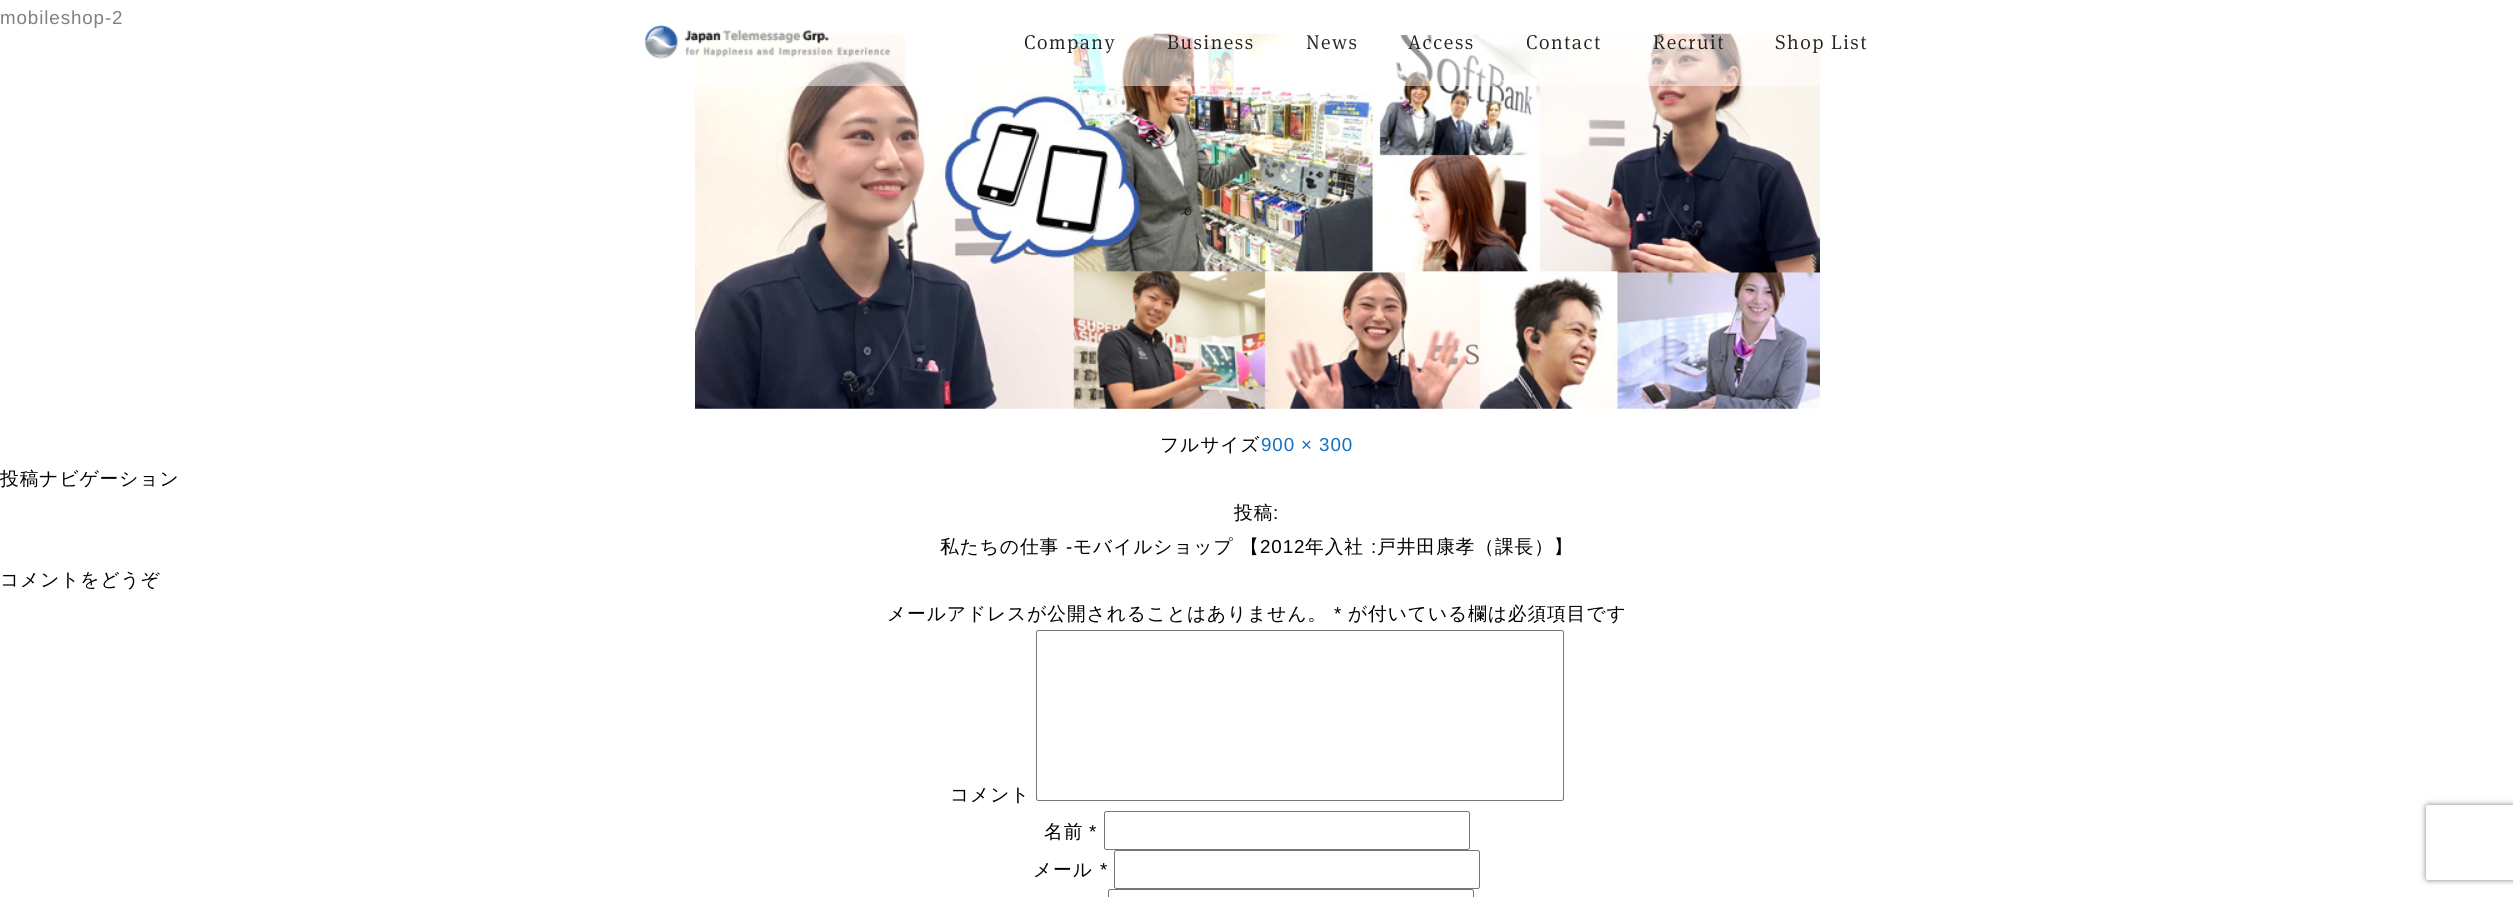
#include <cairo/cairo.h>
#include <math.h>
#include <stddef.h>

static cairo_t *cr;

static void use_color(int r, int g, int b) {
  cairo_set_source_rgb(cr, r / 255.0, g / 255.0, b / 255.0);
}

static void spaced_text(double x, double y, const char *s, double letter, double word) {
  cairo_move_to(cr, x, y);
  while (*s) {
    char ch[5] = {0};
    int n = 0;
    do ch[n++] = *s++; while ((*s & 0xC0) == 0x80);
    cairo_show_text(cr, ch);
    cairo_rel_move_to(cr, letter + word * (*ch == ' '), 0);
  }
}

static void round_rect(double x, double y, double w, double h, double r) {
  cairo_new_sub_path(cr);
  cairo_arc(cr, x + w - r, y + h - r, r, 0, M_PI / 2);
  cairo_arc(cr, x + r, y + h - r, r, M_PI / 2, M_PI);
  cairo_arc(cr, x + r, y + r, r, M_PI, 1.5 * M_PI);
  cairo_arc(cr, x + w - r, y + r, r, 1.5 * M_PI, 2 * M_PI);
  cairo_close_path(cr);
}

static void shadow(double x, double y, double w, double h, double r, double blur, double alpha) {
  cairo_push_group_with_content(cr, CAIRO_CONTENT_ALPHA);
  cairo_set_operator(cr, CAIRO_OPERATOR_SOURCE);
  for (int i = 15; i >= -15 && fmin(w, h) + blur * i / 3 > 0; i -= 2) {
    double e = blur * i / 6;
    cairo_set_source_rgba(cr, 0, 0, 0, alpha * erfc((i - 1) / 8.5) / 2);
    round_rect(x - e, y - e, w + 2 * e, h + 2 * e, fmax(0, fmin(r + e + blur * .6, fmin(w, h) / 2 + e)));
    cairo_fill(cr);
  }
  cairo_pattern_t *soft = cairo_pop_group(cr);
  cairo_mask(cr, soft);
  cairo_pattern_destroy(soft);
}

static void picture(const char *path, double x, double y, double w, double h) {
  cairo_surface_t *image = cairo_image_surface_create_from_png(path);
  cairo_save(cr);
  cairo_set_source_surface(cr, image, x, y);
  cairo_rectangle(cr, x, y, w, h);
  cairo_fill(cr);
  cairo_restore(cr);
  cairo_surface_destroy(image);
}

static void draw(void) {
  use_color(255, 255, 255);
  cairo_paint(cr);
  picture("img_01.png", 695, 33, 1125, 376);
  round_rect(1036.5, 630.5, 527, 170, 2);
  use_color(118, 118, 118);
  cairo_set_line_width(cr, 1);
  cairo_stroke(cr);
  round_rect(1104.5, 811.5, 365, 38, 2);
  cairo_stroke(cr);
  round_rect(1114.5, 850.5, 365, 38, 2);
  cairo_stroke(cr);
  round_rect(1108.5, 889.5, 365, 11, 2);
  cairo_stroke(cr);
  cairo_save(cr);
  cairo_set_fill_rule(cr, CAIRO_FILL_RULE_EVEN_ODD);
  cairo_new_path(cr);
  cairo_move_to(cr, 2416, 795);
  cairo_line_to(cr, 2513, 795);
  cairo_line_to(cr, 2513, 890);
  cairo_line_to(cr, 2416, 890);
  cairo_close_path(cr);
  cairo_move_to(cr, 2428.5, 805);
  cairo_line_to(cr, 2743.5, 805);
  cairo_curve_to(cr, 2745, 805, 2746, 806, 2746, 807.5);
  cairo_line_to(cr, 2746, 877.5);
  cairo_curve_to(cr, 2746, 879, 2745, 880, 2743.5, 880);
  cairo_line_to(cr, 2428.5, 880);
  cairo_curve_to(cr, 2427, 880, 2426, 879, 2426, 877.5);
  cairo_line_to(cr, 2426, 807.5);
  cairo_curve_to(cr, 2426, 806, 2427, 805, 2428.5, 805);
  cairo_close_path(cr);
  cairo_clip(cr);
  use_color(128, 128, 128);
  shadow(2426, 805, 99, 75, 2.5, 3, 1);
  cairo_restore(cr);
  cairo_select_font_face(cr, "Liberation Sans", CAIRO_FONT_SLANT_NORMAL, CAIRO_FONT_WEIGHT_NORMAL);
  cairo_set_font_size(cr, 18.75);
  use_color(0, 0, 0);
  spaced_text(0, 24, "mobileshop-2", 0.9, 0);
  cairo_select_font_face(cr, "WenQuanYi Zen Hei Medium", CAIRO_FONT_SLANT_NORMAL, CAIRO_FONT_WEIGHT_NORMAL);
  spaced_text(1160, 451, "フルサイズ", 0.9, 0);
  cairo_select_font_face(cr, "Liberation Sans", CAIRO_FONT_SLANT_NORMAL, CAIRO_FONT_WEIGHT_NORMAL);
  use_color(17, 112, 193);
  spaced_text(1261, 451, "900 × 300", 0.9, 0);
  cairo_select_font_face(cr, "WenQuanYi Zen Hei Medium", CAIRO_FONT_SLANT_NORMAL, CAIRO_FONT_WEIGHT_NORMAL);
  use_color(0, 0, 0);
  spaced_text(0, 485, "投稿ナビゲーション", 0.9, 0);
  spaced_text(1234, 519, "投稿", 0.9, 0);
  cairo_select_font_face(cr, "Liberation Sans", CAIRO_FONT_SLANT_NORMAL, CAIRO_FONT_WEIGHT_NORMAL);
  spaced_text(1273, 519, ":", 0.9, 0);
  cairo_select_font_face(cr, "WenQuanYi Zen Hei Medium", CAIRO_FONT_SLANT_NORMAL, CAIRO_FONT_WEIGHT_NORMAL);
  spaced_text(940, 553, "私たちの仕事", 0.9, 0);
  cairo_select_font_face(cr, "Liberation Sans", CAIRO_FONT_SLANT_NORMAL, CAIRO_FONT_WEIGHT_NORMAL);
  spaced_text(1066, 553, "-", 0.9, 0);
  cairo_select_font_face(cr, "WenQuanYi Zen Hei Medium", CAIRO_FONT_SLANT_NORMAL, CAIRO_FONT_WEIGHT_NORMAL);
  spaced_text(1073, 553, "モバイルショップ 【", 0.9, 0);
  cairo_select_font_face(cr, "Liberation Sans", CAIRO_FONT_SLANT_NORMAL, CAIRO_FONT_WEIGHT_NORMAL);
  spaced_text(1260, 553, "2012", 0.9, 0);
  cairo_select_font_face(cr, "WenQuanYi Zen Hei Medium", CAIRO_FONT_SLANT_NORMAL, CAIRO_FONT_WEIGHT_NORMAL);
  spaced_text(1305, 553, "年入社", 0.9, 0);
  cairo_select_font_face(cr, "Liberation Sans", CAIRO_FONT_SLANT_NORMAL, CAIRO_FONT_WEIGHT_NORMAL);
  spaced_text(1371, 553, ":", 0.9, 0);
  cairo_select_font_face(cr, "WenQuanYi Zen Hei Medium", CAIRO_FONT_SLANT_NORMAL, CAIRO_FONT_WEIGHT_NORMAL);
  spaced_text(1377, 553, "戸井田康孝（課長）】", 0.9, 0);
  spaced_text(0, 586, "コメントをどうぞ", 0.9, 0);
  spaced_text(887, 620, "メールアドレスが公開されることはありません。", 0.9, 0);
  cairo_select_font_face(cr, "Liberation Sans", CAIRO_FONT_SLANT_NORMAL, CAIRO_FONT_WEIGHT_NORMAL);
  spaced_text(1334, 620, "*", 0.9, 0);
  cairo_select_font_face(cr, "WenQuanYi Zen Hei Medium", CAIRO_FONT_SLANT_NORMAL, CAIRO_FONT_WEIGHT_NORMAL);
  spaced_text(1348, 620, "が付いている欄は必須項目です", 0.9, 0);
  spaced_text(950, 801, "コメント", 0.9, 0);
  spaced_text(1044, 838, "名前", 0.9, 0);
  cairo_select_font_face(cr, "Liberation Sans", CAIRO_FONT_SLANT_NORMAL, CAIRO_FONT_WEIGHT_NORMAL);
  spaced_text(1089, 838, "*", 0.9, 0);
  cairo_select_font_face(cr, "WenQuanYi Zen Hei Medium", CAIRO_FONT_SLANT_NORMAL, CAIRO_FONT_WEIGHT_NORMAL);
  spaced_text(1033, 876, "メール", 0.9, 0);
  cairo_select_font_face(cr, "Liberation Sans", CAIRO_FONT_SLANT_NORMAL, CAIRO_FONT_WEIGHT_NORMAL);
  spaced_text(1100, 876, "*", 0.9, 0);
  cairo_set_source_rgba(cr, 1, 1, 1, 0.5);
  cairo_rectangle(cr, 1, 10, 1819, 76);
  cairo_fill(cr);
  picture("img_02.png", 644, 25, 246, 34);
  cairo_select_font_face(cr, "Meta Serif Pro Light", CAIRO_FONT_SLANT_NORMAL, CAIRO_FONT_WEIGHT_NORMAL);
  cairo_set_font_size(cr, 20);
  use_color(34, 34, 34);
  spaced_text(1024, 49, "Company", 1.5, 0);
  spaced_text(1167, 49, "Business", 1.5, 0);
  spaced_text(1306, 49, "News", 1.5, 0);
  spaced_text(1408, 49, "Access", 1.5, 0);
  spaced_text(1526, 49, "Contact", 1.5, 0);
  spaced_text(1653, 49, "Recruit", 1.5, 0);
  spaced_text(1775, 49, "Shop List", 1.5, 0);
}

int main(void) {
  cairo_surface_t *surface = cairo_image_surface_create(CAIRO_FORMAT_RGB24, 2513, 897);
  cr = cairo_create(surface);
  cairo_font_options_t *options = cairo_font_options_create();
  cairo_font_options_set_hint_metrics(options, CAIRO_HINT_METRICS_OFF);
  cairo_font_options_set_hint_style(options, CAIRO_HINT_STYLE_NONE);
  cairo_set_font_options(cr, options);
  cairo_set_miter_limit(cr, 4);
  draw();
  cairo_surface_write_to_png(surface, "out.png");
  cairo_font_options_destroy(options);
  cairo_destroy(cr);
  cairo_surface_destroy(surface);
  return 0;
}
